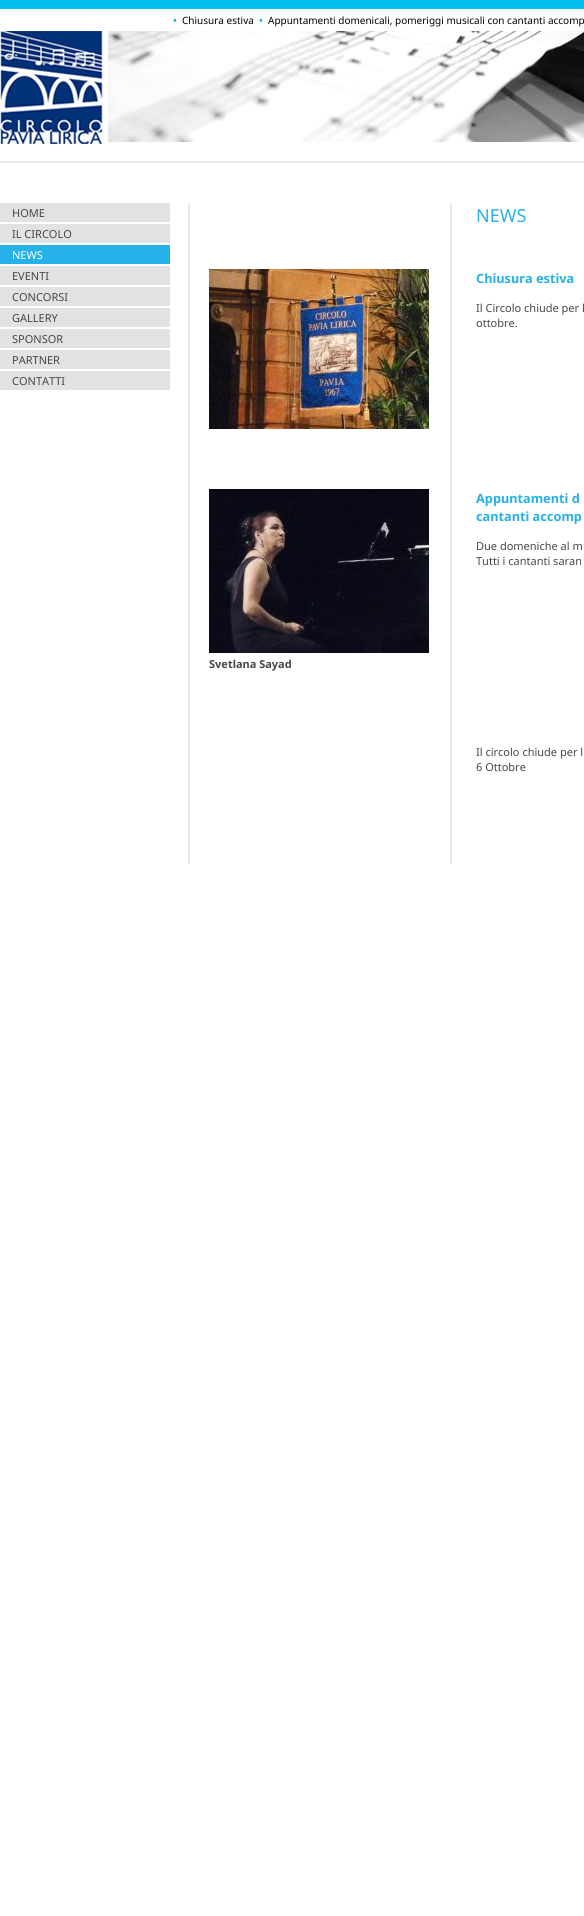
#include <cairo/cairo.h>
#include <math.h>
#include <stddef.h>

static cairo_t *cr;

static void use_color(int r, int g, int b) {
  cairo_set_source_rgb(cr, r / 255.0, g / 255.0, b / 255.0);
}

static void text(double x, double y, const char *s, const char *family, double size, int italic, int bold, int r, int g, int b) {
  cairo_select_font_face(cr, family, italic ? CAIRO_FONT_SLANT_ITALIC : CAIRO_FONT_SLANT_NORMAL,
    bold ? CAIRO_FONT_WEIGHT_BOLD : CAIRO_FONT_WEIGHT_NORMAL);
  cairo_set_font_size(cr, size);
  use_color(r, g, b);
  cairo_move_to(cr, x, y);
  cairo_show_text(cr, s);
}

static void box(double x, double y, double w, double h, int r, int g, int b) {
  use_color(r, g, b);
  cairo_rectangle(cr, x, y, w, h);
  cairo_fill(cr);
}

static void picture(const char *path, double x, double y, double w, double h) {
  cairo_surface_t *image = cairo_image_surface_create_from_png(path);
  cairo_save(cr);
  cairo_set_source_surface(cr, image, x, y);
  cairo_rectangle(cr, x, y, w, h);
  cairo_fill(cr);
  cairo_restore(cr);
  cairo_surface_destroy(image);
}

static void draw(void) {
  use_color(255, 255, 255);
  cairo_paint(cr);
  picture("img_01.png", 0, 0, 584, 163);
  box(0, 9, 584, 22, 255, 255, 255);
  picture("img_02.png", 188, 203, 264, 661);
  box(0, 203, 170, 19, 225, 226, 228);
  box(0, 224, 170, 19, 225, 226, 228);
  box(0, 245, 170, 19, 38, 177, 233);
  box(0, 266, 170, 19, 225, 226, 228);
  box(0, 287, 170, 19, 225, 226, 228);
  box(0, 308, 170, 19, 225, 226, 228);
  box(0, 329, 170, 19, 225, 226, 228);
  box(0, 350, 170, 19, 225, 226, 228);
  box(0, 371, 170, 19, 225, 226, 228);
  picture("img_03.png", 209, 269, 220, 160);
  picture("img_04.png", 209, 489, 220, 164);
  text(173, 24, "•", "Noto Sans", 10, 0, 1, 38, 177, 233);
  text(182, 24, "Chiusura estiva", "Noto Sans", 10, 0, 0, 0, 0, 0);
  text(259, 24, "•", "Noto Sans", 10, 0, 1, 38, 177, 233);
  text(268, 24, "Appuntamenti domenicali, pomeriggi musicali con cantanti accomp", "Noto Sans", 10, 0, 0, 0, 0, 0);
  text(12, 217, "HOME", "Noto Sans", 11, 0, 0, 70, 71, 73);
  text(12, 238, "IL CIRCOLO", "Noto Sans", 11, 0, 0, 70, 71, 73);
  text(12, 259, "NEWS", "Noto Sans", 11, 0, 0, 255, 255, 255);
  text(12, 280, "EVENTI", "Noto Sans", 11, 0, 0, 70, 71, 73);
  text(12, 301, "CONCORSI", "Noto Sans", 11, 0, 0, 70, 71, 73);
  text(12, 322, "GALLERY", "Noto Sans", 11, 0, 0, 70, 71, 73);
  text(12, 343, "SPONSOR", "Noto Sans", 11, 0, 0, 70, 71, 73);
  text(12, 364, "PARTNER", "Noto Sans", 11, 0, 0, 70, 71, 73);
  text(12, 385, "CONTATTI", "Noto Sans", 11, 0, 0, 70, 71, 73);
  text(476, 222, "NEWS", "Noto Sans", 18, 0, 0, 38, 177, 233);
  text(476, 283, "Chiusura estiva", "Noto Sans", 12.75, 0, 1, 38, 177, 233);
  text(476, 312, "Il Circolo chiude per l", "Noto Sans", 11, 0, 0, 70, 71, 73);
  text(476, 327, "ottobre.", "Noto Sans", 11, 0, 0, 70, 71, 73);
  text(476, 503, "Appuntamenti d", "Noto Sans", 12.75, 0, 1, 38, 177, 233);
  text(476, 521, "cantanti accomp", "Noto Sans", 12.75, 0, 1, 38, 177, 233);
  text(476, 550, "Due domeniche al m", "Noto Sans", 11, 0, 0, 70, 71, 73);
  text(476, 565, "Tutti i cantanti saran", "Noto Sans", 11, 0, 0, 70, 71, 73);
  text(209, 668, "Svetlana Sayad", "Noto Sans", 11, 0, 1, 70, 71, 73);
  text(476, 756, "Il circolo chiude per l", "Noto Sans", 11, 0, 0, 70, 71, 73);
  text(476, 771, "6 Ottobre", "Noto Sans", 11, 0, 0, 70, 71, 73);
}

int main(void) {
  cairo_surface_t *surface = cairo_image_surface_create(CAIRO_FORMAT_RGB24, 584, 1916);
  cr = cairo_create(surface);
  cairo_font_options_t *options = cairo_font_options_create();
  cairo_font_options_set_hint_metrics(options, CAIRO_HINT_METRICS_OFF);
  cairo_font_options_set_hint_style(options, CAIRO_HINT_STYLE_NONE);
  cairo_set_font_options(cr, options);
  cairo_set_miter_limit(cr, 4);
  draw();
  cairo_surface_write_to_png(surface, "out.png");
  cairo_font_options_destroy(options);
  cairo_destroy(cr);
  cairo_surface_destroy(surface);
  return 0;
}
